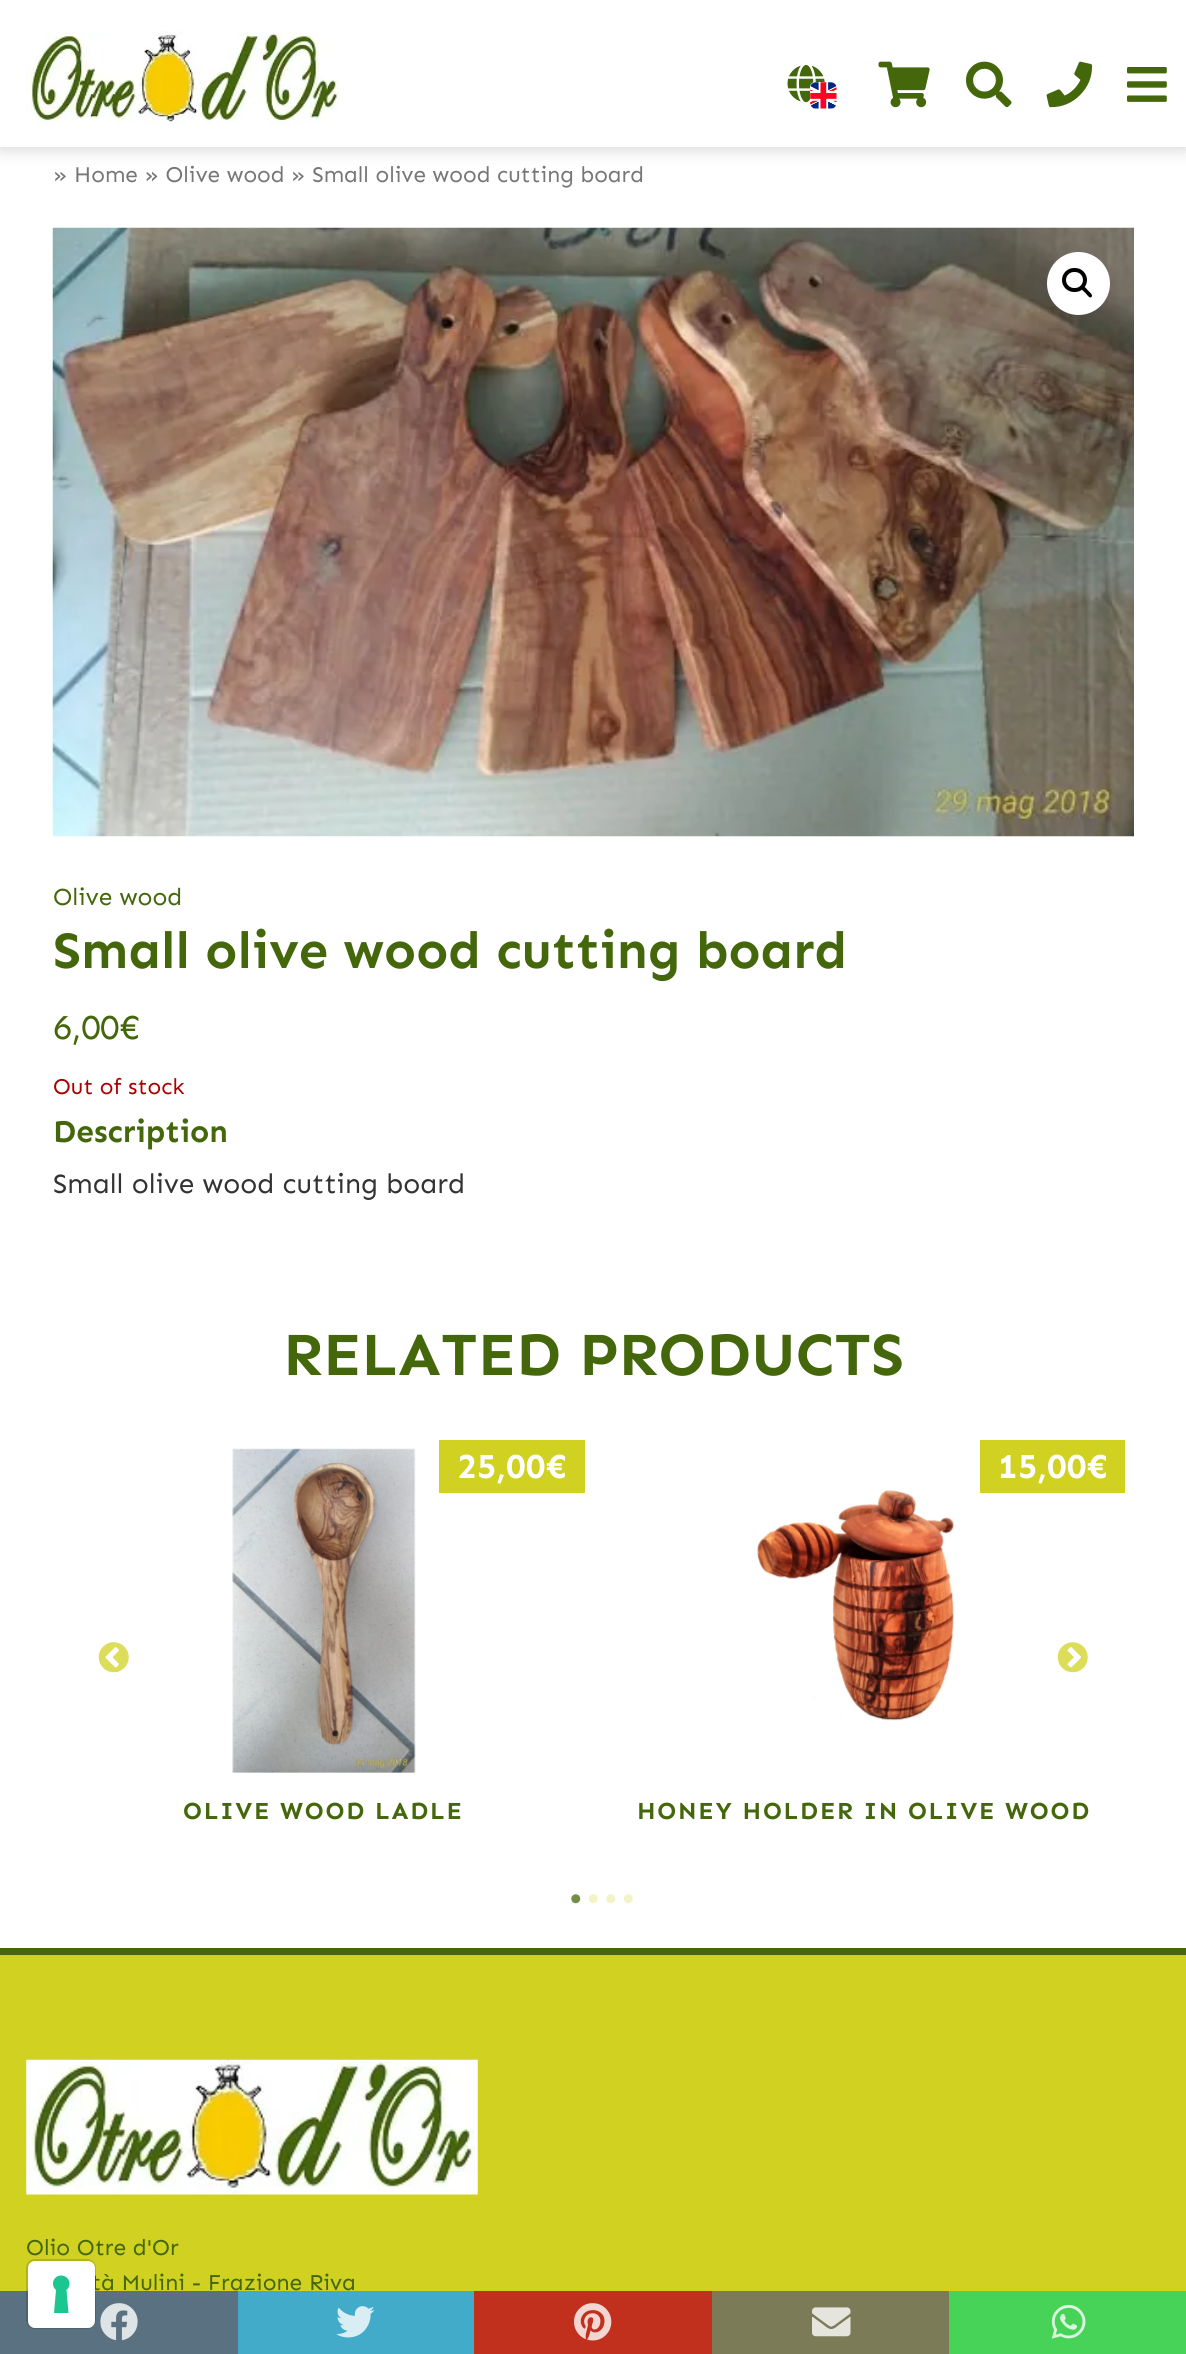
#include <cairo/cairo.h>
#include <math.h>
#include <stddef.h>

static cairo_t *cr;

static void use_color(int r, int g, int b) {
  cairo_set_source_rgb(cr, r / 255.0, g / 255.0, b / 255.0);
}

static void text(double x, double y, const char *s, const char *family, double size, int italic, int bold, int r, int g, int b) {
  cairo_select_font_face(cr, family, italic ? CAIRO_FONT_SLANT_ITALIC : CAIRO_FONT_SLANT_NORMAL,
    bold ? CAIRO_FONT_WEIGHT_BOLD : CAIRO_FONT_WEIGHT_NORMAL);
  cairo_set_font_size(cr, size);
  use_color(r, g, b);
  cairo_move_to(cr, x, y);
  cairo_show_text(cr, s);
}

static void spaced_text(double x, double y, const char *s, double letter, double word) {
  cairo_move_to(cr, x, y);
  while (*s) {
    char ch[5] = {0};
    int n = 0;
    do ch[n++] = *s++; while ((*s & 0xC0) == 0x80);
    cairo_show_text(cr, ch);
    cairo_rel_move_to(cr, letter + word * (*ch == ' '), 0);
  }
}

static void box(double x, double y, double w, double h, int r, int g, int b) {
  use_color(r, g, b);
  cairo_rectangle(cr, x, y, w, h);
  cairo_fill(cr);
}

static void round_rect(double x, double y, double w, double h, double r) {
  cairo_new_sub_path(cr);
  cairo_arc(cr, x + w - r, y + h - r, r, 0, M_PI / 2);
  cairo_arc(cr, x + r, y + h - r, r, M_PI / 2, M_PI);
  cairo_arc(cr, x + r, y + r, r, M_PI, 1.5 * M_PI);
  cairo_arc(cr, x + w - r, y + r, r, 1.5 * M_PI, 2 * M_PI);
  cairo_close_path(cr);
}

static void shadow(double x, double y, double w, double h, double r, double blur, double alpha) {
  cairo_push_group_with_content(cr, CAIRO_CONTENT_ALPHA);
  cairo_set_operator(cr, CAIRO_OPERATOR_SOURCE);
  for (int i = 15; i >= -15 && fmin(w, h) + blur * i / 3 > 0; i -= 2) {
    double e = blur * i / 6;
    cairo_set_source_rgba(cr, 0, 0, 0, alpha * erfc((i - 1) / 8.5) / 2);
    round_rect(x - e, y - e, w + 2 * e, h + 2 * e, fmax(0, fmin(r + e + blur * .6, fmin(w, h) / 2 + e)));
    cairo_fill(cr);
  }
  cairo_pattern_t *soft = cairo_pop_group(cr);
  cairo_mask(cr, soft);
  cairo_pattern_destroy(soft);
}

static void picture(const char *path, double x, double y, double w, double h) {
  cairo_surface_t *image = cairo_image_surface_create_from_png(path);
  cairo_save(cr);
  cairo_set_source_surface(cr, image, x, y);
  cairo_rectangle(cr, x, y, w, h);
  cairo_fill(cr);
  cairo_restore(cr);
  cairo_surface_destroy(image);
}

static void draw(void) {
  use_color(255, 255, 255);
  cairo_paint(cr);
  cairo_save(cr);
  cairo_rectangle(cr, 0, 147, 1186, 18);
  cairo_clip(cr);
  use_color(204, 204, 204);
  shadow(0, 0, 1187, 147, 0, 9, 1);
  cairo_restore(cr);
  picture("img_01.png", 26, 31, 313, 94);
  picture("img_02.png", 787, 64, 38, 39);
  use_color(255, 255, 255);
  round_rect(810, 82, 27, 27, 5);
  cairo_fill(cr);
  picture("img_03.png", 810, 82, 27, 27);
  picture("img_04.png", 966, 61, 46, 47);
  picture("img_05.png", 1046, 61, 47, 47);
  picture("img_06.png", 1127, 67, 40, 35);
  picture("img_07.png", 878, 61, 52, 47);
  picture("img_08.png", 52, 227, 1082, 610);
  cairo_arc(cr, 1078.5, 283.5, 31.5, 0, 2 * M_PI);
  cairo_fill(cr);
  round_rect(1064, 270, 21, 20, 10);
  use_color(0, 0, 0);
  cairo_set_line_width(cr, 4);
  cairo_stroke(cr);
  cairo_new_path(cr);
  cairo_move_to(cr, 1082, 287);
  cairo_curve_to(cr, 1084, 285, 1087, 289.5, 1088, 290.5);
  cairo_curve_to(cr, 1089, 291.5, 1093.5, 295, 1091.5, 297);
  cairo_curve_to(cr, 1089.5, 299, 1086.5, 294, 1085.5, 293);
  cairo_curve_to(cr, 1084.5, 292, 1080, 289, 1082, 287);
  cairo_close_path(cr);
  cairo_fill(cr);
  picture("img_09.png", 98, 1642, 31, 31);
  picture("img_10.png", 232, 1448, 184, 325);
  box(439, 1440, 146, 53, 208, 209, 33);
  picture("img_11.png", 756, 1490, 199, 231);
  box(980, 1440, 145, 53, 208, 209, 33);
  picture("img_12.png", 1057, 1642, 31, 31);
  picture("img_13.png", 571, 1894, 10, 10);
  picture("img_14.png", 588, 1894, 10, 10);
  picture("img_15.png", 606, 1894, 10, 10);
  picture("img_14.png", 623, 1894, 10, 10);
  box(0, 1955, 1186, 399, 208, 209, 33);
  cairo_set_source_rgba(cr, 0.231, 0.349, 0.596, 0.8);
  cairo_rectangle(cr, 0, 2291, 238, 63);
  cairo_fill(cr);
  picture("img_16.png", 100, 2303, 38, 38);
  cairo_set_source_rgba(cr, 0.114, 0.631, 0.949, 0.8);
  cairo_rectangle(cr, 238, 2291, 236, 63);
  cairo_fill(cr);
  picture("img_17.png", 336, 2306, 39, 32);
  box(474, 2291, 238, 63, 193, 48, 29);
  picture("img_18.png", 574, 2303, 38, 38);
  box(712, 2291, 237, 63, 123, 123, 88);
  picture("img_19.png", 812, 2307, 39, 30);
  box(949, 2291, 237, 63, 71, 211, 88);
  picture("img_20.png", 1051, 2305, 35, 34);
  box(0, 1948, 1186, 7, 68, 103, 11);
  picture("img_21.png", 26, 2059, 452, 136);
  text(53, 182, "» Home » Olive wood » Small olive wood cutting board", "Sen", 22.55, 0, 0, 118, 118, 118);
  text(53, 905, "Olive wood", "Sen", 24.5, 0, 0, 68, 103, 11);
  text(53, 968, "Small olive wood cutting board", "Sen", 52.5, 0, 1, 68, 103, 11);
  text(53, 1039, "6,00€", "Sen", 35, 0, 0, 68, 103, 11);
  text(53, 1094, "Out of stock", "Sen", 22.55, 0, 0, 170, 0, 0);
  text(53, 1142, "Description", "Sen", 31.5, 0, 1, 68, 103, 11);
  text(53, 1193, "Small olive wood cutting board", "Sen", 28, 0, 0, 51, 51, 51);
  text(283, 1375, "RELATED PRODUCTS", "Sen", 61.25, 0, 1, 68, 103, 11);
  text(457, 1478, "25,00€", "Sen", 35, 0, 1, 255, 255, 255);
  cairo_set_font_size(cr, 24.5);
  use_color(68, 103, 11);
  spaced_text(183, 1819, "OLIVE WOOD LADLE", 1.75, 0);
  text(998, 1478, "15,00€", "Sen", 35, 0, 1, 255, 255, 255);
  cairo_set_font_size(cr, 24.5);
  use_color(68, 103, 11);
  spaced_text(637, 1819, "HONEY HOLDER IN OLIVE WOOD", 1.75, 0);
  text(26, 2255, "Olio Otre d'Or", "Sen", 22.75, 0, 0, 68, 103, 11);
  text(91, 2290, "tà Mulini - Frazione Riva", "Sen", 22.75, 0, 0, 68, 103, 11);
  round_rect(27, 2260, 68, 68, 8);
  cairo_set_source_rgba(cr, 0, 0, 0, 0.15);
  cairo_set_line_width(cr, 2);
  cairo_stroke(cr);
  use_color(255, 255, 255);
  round_rect(28, 2261, 67, 67, 7);
  cairo_fill(cr);
  use_color(28, 198, 145);
  cairo_set_fill_rule(cr, CAIRO_FILL_RULE_EVEN_ODD);
  cairo_new_path(cr);
  cairo_move_to(cr, 61, 2275.5);
  cairo_curve_to(cr, 69, 2275.5, 72.5, 2285, 66.5, 2290);
  cairo_line_to(cr, 68.5, 2313);
  cairo_line_to(cr, 54, 2313);
  cairo_line_to(cr, 56, 2290);
  cairo_curve_to(cr, 50, 2285, 53.5, 2275.5, 61, 2275.5);
  cairo_close_path(cr);
  cairo_fill(cr);
}

int main(void) {
  cairo_surface_t *surface = cairo_image_surface_create(CAIRO_FORMAT_RGB24, 1186, 2354);
  cr = cairo_create(surface);
  cairo_font_options_t *options = cairo_font_options_create();
  cairo_font_options_set_hint_metrics(options, CAIRO_HINT_METRICS_OFF);
  cairo_font_options_set_hint_style(options, CAIRO_HINT_STYLE_NONE);
  cairo_set_font_options(cr, options);
  cairo_set_miter_limit(cr, 4);
  draw();
  cairo_surface_write_to_png(surface, "out.png");
  cairo_font_options_destroy(options);
  cairo_destroy(cr);
  cairo_surface_destroy(surface);
  return 0;
}
